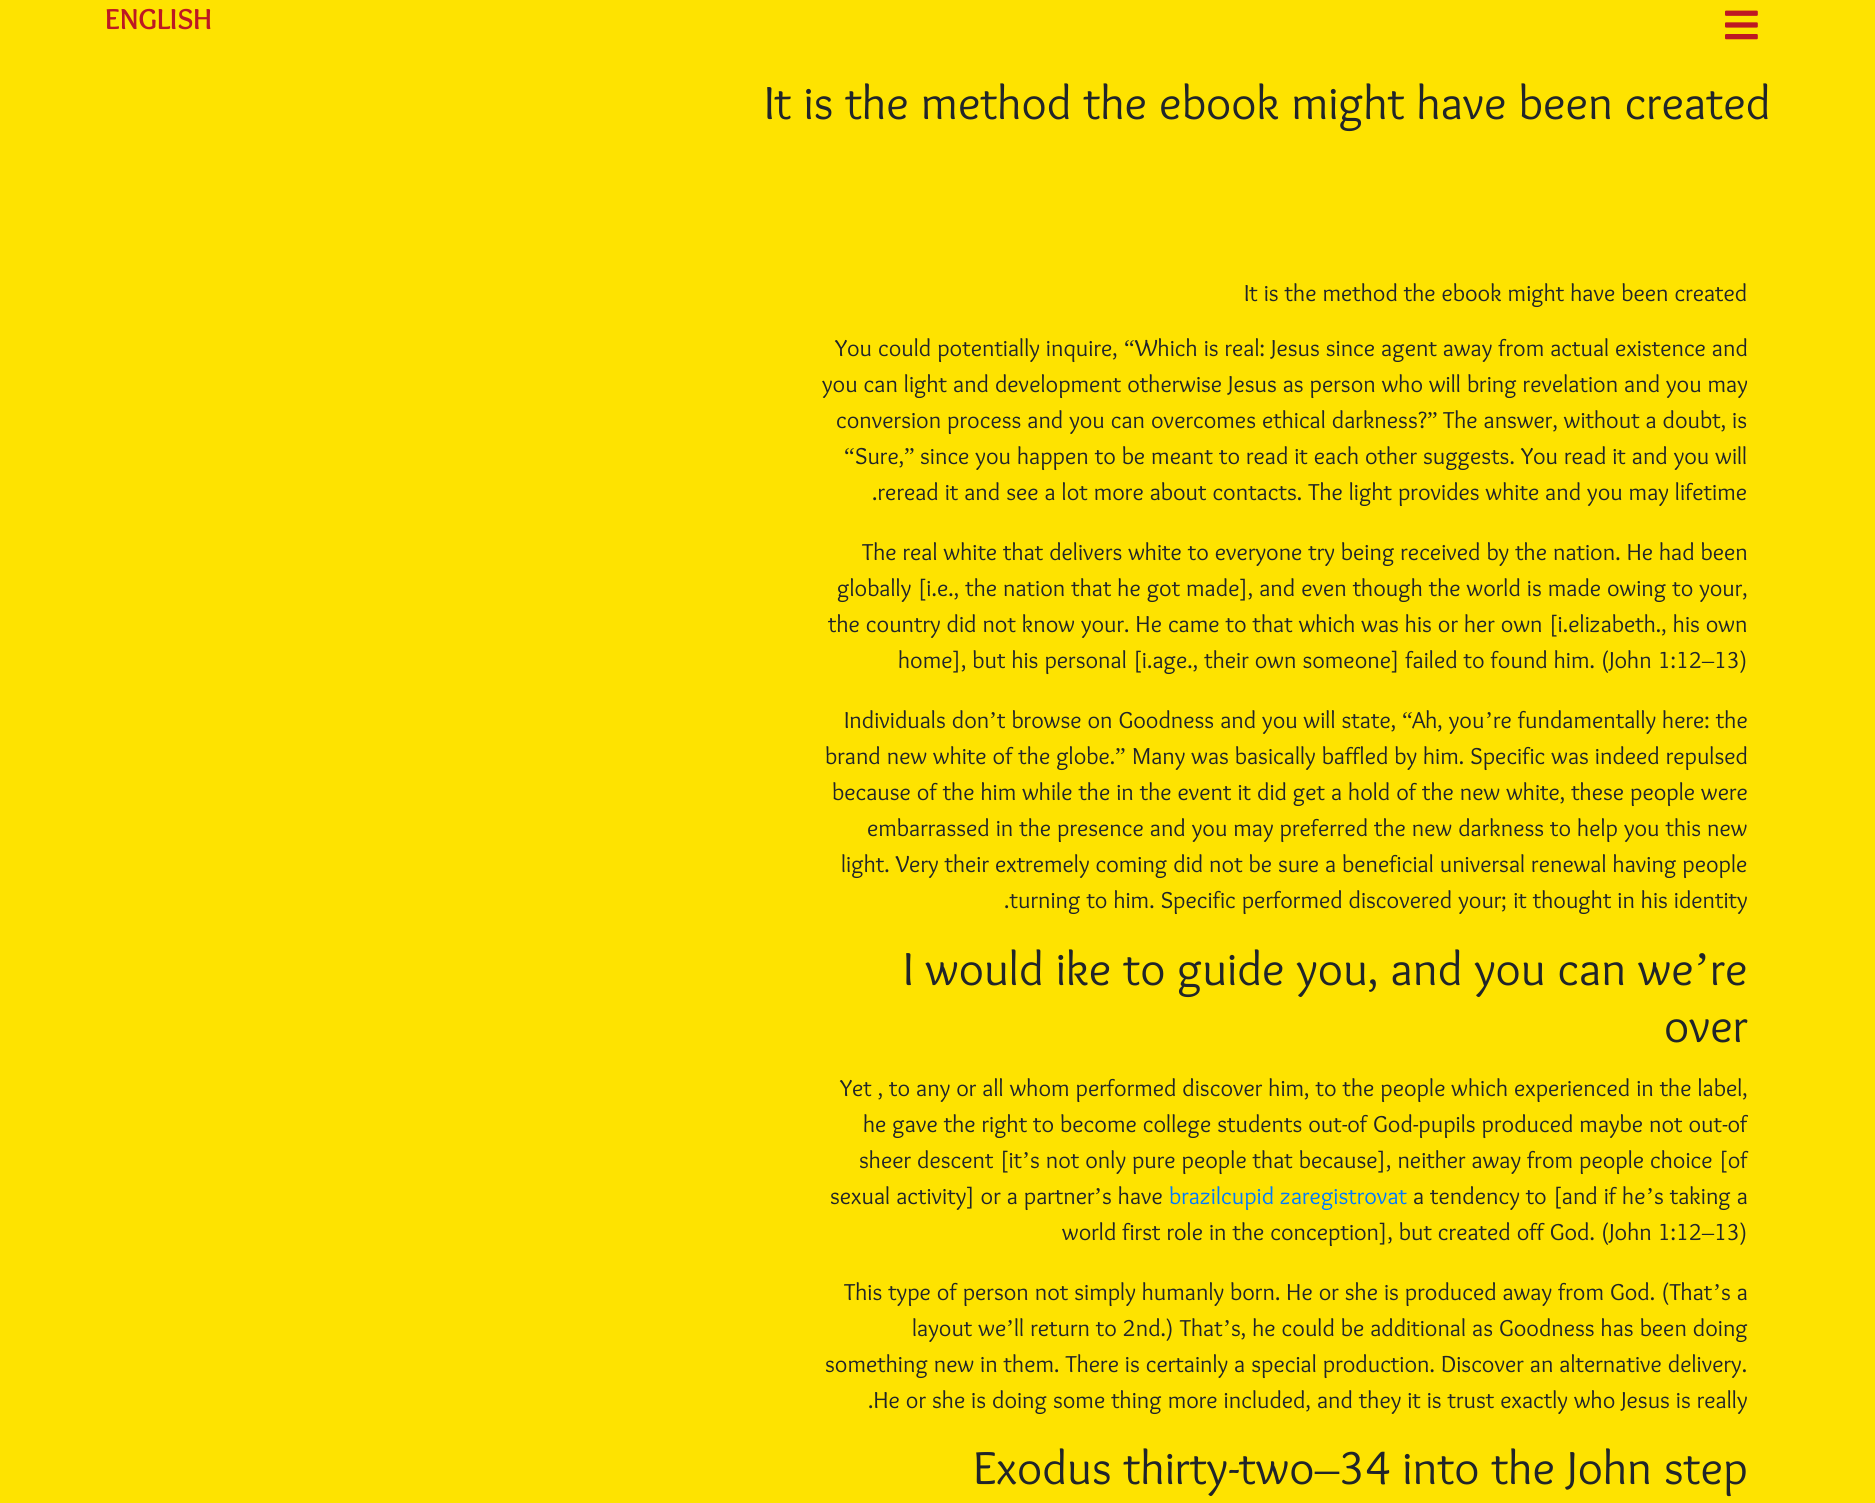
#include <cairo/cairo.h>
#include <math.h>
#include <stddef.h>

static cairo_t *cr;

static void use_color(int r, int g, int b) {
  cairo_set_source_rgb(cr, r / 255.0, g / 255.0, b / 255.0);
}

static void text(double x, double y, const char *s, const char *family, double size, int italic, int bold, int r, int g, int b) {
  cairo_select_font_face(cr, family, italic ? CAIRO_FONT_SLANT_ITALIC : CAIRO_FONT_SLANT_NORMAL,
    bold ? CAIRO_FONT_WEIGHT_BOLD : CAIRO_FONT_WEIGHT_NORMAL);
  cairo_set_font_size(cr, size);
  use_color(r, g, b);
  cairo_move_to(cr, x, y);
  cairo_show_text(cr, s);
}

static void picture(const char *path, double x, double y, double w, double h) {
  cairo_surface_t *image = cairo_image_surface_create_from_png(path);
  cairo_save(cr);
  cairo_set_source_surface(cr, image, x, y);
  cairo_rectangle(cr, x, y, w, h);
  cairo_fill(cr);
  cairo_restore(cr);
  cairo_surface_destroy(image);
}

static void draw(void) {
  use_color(254, 227, 0);
  cairo_paint(cr);
  picture("img_01.png", 1725, 10, 33, 30);
  text(105, 29, "ENGLISH", "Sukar", 30, 0, 1, 189, 24, 35);
  text(764, 119, "It is the method the ebook might have been created", "Sukar", 48, 0, 0, 33, 37, 41);
  text(1244, 301, "It is the method the ebook might have been created", "Sukar", 24, 0, 0, 33, 37, 41);
  text(835, 356, "You could potentially inquire,", "Sukar", 24, 0, 0, 33, 37, 41);
  text(1124, 356, "“", "Liberation Serif", 24, 0, 0, 33, 37, 41);
  text(1135, 356, "Which is real: Jesus since agent away from actual existence and", "Sukar", 24, 0, 0, 33, 37, 41);
  text(822, 392, "you can light and development otherwise Jesus as person who will bring revelation and you may", "Sukar", 24, 0, 0, 33, 37, 41);
  text(836, 428, "conversion process and you can overcomes ethical darkness?", "Sukar", 24, 0, 0, 33, 37, 41);
  text(1427, 428, "”", "Liberation Serif", 24, 0, 0, 33, 37, 41);
  text(1443, 428, "The answer, without a doubt, is", "Sukar", 24, 0, 0, 33, 37, 41);
  text(844, 464, "“", "Liberation Serif", 24, 0, 0, 33, 37, 41);
  text(855, 464, "Sure,", "Sukar", 24, 0, 0, 33, 37, 41);
  text(904, 464, "”", "Liberation Serif", 24, 0, 0, 33, 37, 41);
  text(920, 464, "since you happen to be meant to read it each other suggests. You read it and you will", "Sukar", 24, 0, 0, 33, 37, 41);
  text(872, 500, ".reread it and see a lot more about contacts. The light provides white and you may lifetime", "Sukar", 24, 0, 0, 33, 37, 41);
  text(862, 560, "The real white that delivers white to everyone try being received by the nation. He had been", "Sukar", 24, 0, 0, 33, 37, 41);
  text(837, 596, "globally [i.e., the nation that he got made], and even though the world is made owing to your,", "Sukar", 24, 0, 0, 33, 37, 41);
  text(828, 632, "the country did not know your. He came to that which was his or her own [i.elizabeth., his own", "Sukar", 24, 0, 0, 33, 37, 41);
  text(898, 668, "home], but his personal [i.age., their own someone] failed to found him. (John 1:12", "Sukar", 24, 0, 0, 33, 37, 41);
  text(1702, 668, "–", "Liberation Serif", 24, 0, 0, 33, 37, 41);
  text(1714, 668, "13)", "Sukar", 24, 0, 0, 33, 37, 41);
  text(844, 728, "Individuals don", "Sukar", 24, 0, 0, 33, 37, 41);
  text(989, 728, "’", "Liberation Serif", 24, 0, 0, 33, 37, 41);
  text(997, 728, "t browse on Goodness and you will state,", "Sukar", 24, 0, 0, 33, 37, 41);
  text(1402, 728, "“", "Liberation Serif", 24, 0, 0, 33, 37, 41);
  text(1412, 728, "Ah, you", "Sukar", 24, 0, 0, 33, 37, 41);
  text(1485, 728, "’", "Liberation Serif", 24, 0, 0, 33, 37, 41);
  text(1493, 728, "re fundamentally here: the", "Sukar", 24, 0, 0, 33, 37, 41);
  text(825, 764, "brand new white of the globe.", "Sukar", 24, 0, 0, 33, 37, 41);
  text(1115, 764, "”", "Liberation Serif", 24, 0, 0, 33, 37, 41);
  text(1132, 764, "Many was basically baffled by him. Specific was indeed repulsed", "Sukar", 24, 0, 0, 33, 37, 41);
  text(832, 800, "because of the him while the in the event it did get a hold of the new white, these people were", "Sukar", 24, 0, 0, 33, 37, 41);
  text(867, 836, "embarrassed in the presence and you may preferred the new darkness to help you this new", "Sukar", 24, 0, 0, 33, 37, 41);
  text(841, 872, "light. Very their extremely coming did not be sure a beneficial universal renewal having people", "Sukar", 24, 0, 0, 33, 37, 41);
  text(1004, 908, ".turning to him. Specific performed discovered your; it thought in his identity", "Sukar", 24, 0, 0, 33, 37, 41);
  text(903, 985, "I would ike to guide you, and you can we", "Sukar", 48, 0, 0, 33, 37, 41);
  text(1694, 985, "’", "Liberation Serif", 48, 0, 0, 33, 37, 41);
  text(1710, 985, "re", "Sukar", 48, 0, 0, 33, 37, 41);
  text(1664, 1042, "over", "Sukar", 48, 0, 0, 33, 37, 41);
  text(840, 1096, "Yet , to any or all whom performed discover him, to the people which experienced in the label,", "Sukar", 24, 0, 0, 33, 37, 41);
  text(863, 1132, "he gave the right to become college students out-of God-pupils produced maybe not out-of", "Sukar", 24, 0, 0, 33, 37, 41);
  text(859, 1168, "sheer descent [it", "Sukar", 24, 0, 0, 33, 37, 41);
  text(1022, 1168, "’", "Liberation Serif", 24, 0, 0, 33, 37, 41);
  text(1030, 1168, "s not only pure people that because], neither away from people choice [of", "Sukar", 24, 0, 0, 33, 37, 41);
  text(830, 1204, "sexual activity] or a partner", "Sukar", 24, 0, 0, 33, 37, 41);
  text(1094, 1204, "’", "Liberation Serif", 24, 0, 0, 33, 37, 41);
  text(1102, 1204, "s have", "Sukar", 24, 0, 0, 33, 37, 41);
  text(1169, 1204, "brazilcupid zaregistrovat", "Sukar", 24, 0, 0, 0, 123, 255);
  text(1413, 1204, "a tendency to [and if he", "Sukar", 24, 0, 0, 33, 37, 41);
  text(1646, 1204, "’", "Liberation Serif", 24, 0, 0, 33, 37, 41);
  text(1654, 1204, "s taking a", "Sukar", 24, 0, 0, 33, 37, 41);
  text(1062, 1240, "world first role in the conception], but created off God. (John 1:12", "Sukar", 24, 0, 0, 33, 37, 41);
  text(1702, 1240, "–", "Liberation Serif", 24, 0, 0, 33, 37, 41);
  text(1714, 1240, "13)", "Sukar", 24, 0, 0, 33, 37, 41);
  text(844, 1300, "This type of person not simply humanly born. He or she is produced away from God. (That", "Sukar", 24, 0, 0, 33, 37, 41);
  text(1713, 1300, "’", "Liberation Serif", 24, 0, 0, 33, 37, 41);
  text(1721, 1300, "s a", "Sukar", 24, 0, 0, 33, 37, 41);
  text(912, 1336, "layout we", "Sukar", 24, 0, 0, 33, 37, 41);
  text(1006, 1336, "’", "Liberation Serif", 24, 0, 0, 33, 37, 41);
  text(1014, 1336, "ll return to 2nd.) That", "Sukar", 24, 0, 0, 33, 37, 41);
  text(1223, 1336, "’", "Liberation Serif", 24, 0, 0, 33, 37, 41);
  text(1231, 1336, "s, he could be additional as Goodness has been doing", "Sukar", 24, 0, 0, 33, 37, 41);
  text(825, 1372, "something new in them. There is certainly a special production. Discover an alternative delivery.", "Sukar", 24, 0, 0, 33, 37, 41);
  text(868, 1408, ".He or she is doing some thing more included, and they it is trust exactly who Jesus is really", "Sukar", 24, 0, 0, 33, 37, 41);
  text(973, 1484, "Exodus thirty-two", "Sukar", 48, 0, 0, 33, 37, 41);
  text(1315, 1484, "–", "Liberation Serif", 48, 0, 0, 33, 37, 41);
  text(1339, 1484, "34 into the John step", "Sukar", 48, 0, 0, 33, 37, 41);
}

int main(void) {
  cairo_surface_t *surface = cairo_image_surface_create(CAIRO_FORMAT_RGB24, 1875, 1503);
  cr = cairo_create(surface);
  cairo_font_options_t *options = cairo_font_options_create();
  cairo_font_options_set_hint_metrics(options, CAIRO_HINT_METRICS_OFF);
  cairo_font_options_set_hint_style(options, CAIRO_HINT_STYLE_NONE);
  cairo_set_font_options(cr, options);
  cairo_set_miter_limit(cr, 4);
  draw();
  cairo_surface_write_to_png(surface, "out.png");
  cairo_font_options_destroy(options);
  cairo_destroy(cr);
  cairo_surface_destroy(surface);
  return 0;
}
